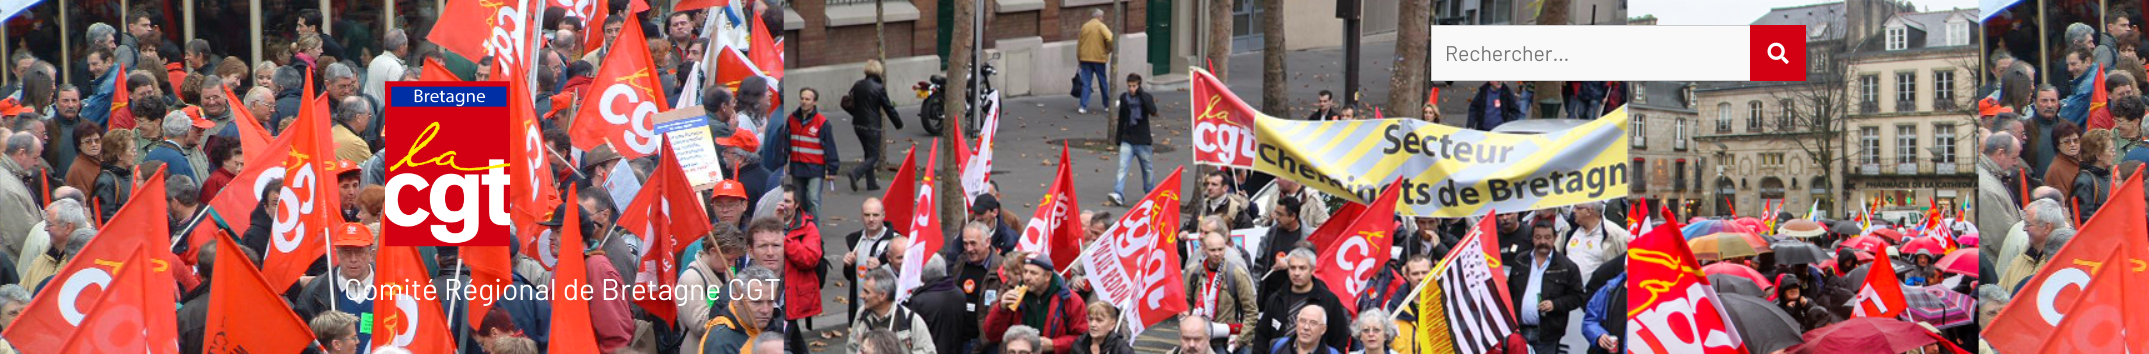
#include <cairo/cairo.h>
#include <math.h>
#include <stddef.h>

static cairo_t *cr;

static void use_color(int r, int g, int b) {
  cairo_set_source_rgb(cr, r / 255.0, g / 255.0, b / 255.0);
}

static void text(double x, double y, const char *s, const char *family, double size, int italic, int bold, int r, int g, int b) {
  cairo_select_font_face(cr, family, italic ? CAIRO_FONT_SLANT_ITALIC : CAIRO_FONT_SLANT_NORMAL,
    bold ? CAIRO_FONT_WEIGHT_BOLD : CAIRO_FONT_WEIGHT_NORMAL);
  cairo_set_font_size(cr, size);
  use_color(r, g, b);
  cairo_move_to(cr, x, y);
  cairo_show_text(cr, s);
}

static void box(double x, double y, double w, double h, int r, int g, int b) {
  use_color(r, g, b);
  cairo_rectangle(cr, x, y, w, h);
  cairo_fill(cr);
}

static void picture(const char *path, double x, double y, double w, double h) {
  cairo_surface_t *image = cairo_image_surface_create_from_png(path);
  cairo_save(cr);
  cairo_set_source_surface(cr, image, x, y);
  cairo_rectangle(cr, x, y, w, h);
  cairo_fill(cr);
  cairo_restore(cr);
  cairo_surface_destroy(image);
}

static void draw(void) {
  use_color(255, 255, 255);
  cairo_paint(cr);
  picture("img_01.png", 0, 0, 2149, 354);
  box(1432, 26, 318, 54, 249, 249, 249);
  cairo_rectangle(cr, 1431.5, 25.5, 374, 55);
  use_color(204, 204, 204);
  cairo_set_line_width(cr, 1);
  cairo_stroke(cr);
  box(1750, 25, 56, 56, 210, 0, 18);
  picture("img_02.png", 1767, 42, 22, 22);
  picture("img_03.png", 385, 81, 125, 166);
  text(1445, 61, "Rechercher…", "Barlow", 21.25, 0, 0, 117, 117, 117);
  text(344, 300, "Comité Régional de Bretagne CGT", "Barlow", 30, 0, 0, 255, 255, 255);
}

int main(void) {
  cairo_surface_t *surface = cairo_image_surface_create(CAIRO_FORMAT_RGB24, 2149, 354);
  cr = cairo_create(surface);
  cairo_font_options_t *options = cairo_font_options_create();
  cairo_font_options_set_hint_metrics(options, CAIRO_HINT_METRICS_OFF);
  cairo_font_options_set_hint_style(options, CAIRO_HINT_STYLE_NONE);
  cairo_set_font_options(cr, options);
  cairo_set_miter_limit(cr, 4);
  draw();
  cairo_surface_write_to_png(surface, "out.png");
  cairo_font_options_destroy(options);
  cairo_destroy(cr);
  cairo_surface_destroy(surface);
  return 0;
}
